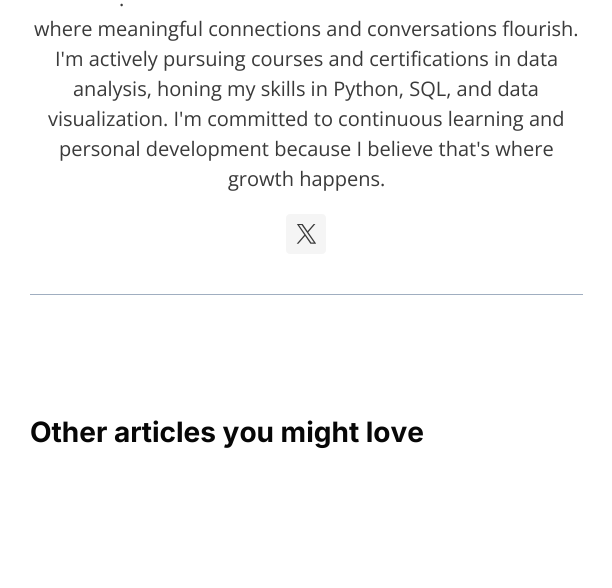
#include <cairo/cairo.h>
#include <math.h>
#include <stddef.h>

static cairo_t *cr;

static void use_color(int r, int g, int b) {
  cairo_set_source_rgb(cr, r / 255.0, g / 255.0, b / 255.0);
}

static void text(double x, double y, const char *s, const char *family, double size, int italic, int bold, int r, int g, int b) {
  cairo_select_font_face(cr, family, italic ? CAIRO_FONT_SLANT_ITALIC : CAIRO_FONT_SLANT_NORMAL,
    bold ? CAIRO_FONT_WEIGHT_BOLD : CAIRO_FONT_WEIGHT_NORMAL);
  cairo_set_font_size(cr, size);
  use_color(r, g, b);
  cairo_move_to(cr, x, y);
  cairo_show_text(cr, s);
}

static void box(double x, double y, double w, double h, int r, int g, int b) {
  use_color(r, g, b);
  cairo_rectangle(cr, x, y, w, h);
  cairo_fill(cr);
}

static void round_rect(double x, double y, double w, double h, double r) {
  cairo_new_sub_path(cr);
  cairo_arc(cr, x + w - r, y + h - r, r, 0, M_PI / 2);
  cairo_arc(cr, x + r, y + h - r, r, M_PI / 2, M_PI);
  cairo_arc(cr, x + r, y + r, r, M_PI, 1.5 * M_PI);
  cairo_arc(cr, x + w - r, y + r, r, 1.5 * M_PI, 2 * M_PI);
  cairo_close_path(cr);
}

static void picture(const char *path, double x, double y, double w, double h) {
  cairo_surface_t *image = cairo_image_surface_create_from_png(path);
  cairo_save(cr);
  cairo_set_source_surface(cr, image, x, y);
  cairo_rectangle(cr, x, y, w, h);
  cairo_fill(cr);
  cairo_restore(cr);
  cairo_surface_destroy(image);
}

static void draw(void) {
  use_color(255, 255, 255);
  cairo_paint(cr);
  box(30, 294, 553, 1, 160, 174, 192);
  use_color(245, 245, 245);
  round_rect(286, 214, 40, 40, 4);
  cairo_fill(cr);
  picture("img_01.png", 296, 224, 20, 20);
  text(119, 6, ".", "Open Sans", 20, 0, 0, 58, 58, 58);
  text(34, 36, "where meaningful connections and conversations flourish.", "Open Sans", 20, 0, 0, 58, 58, 58);
  text(55, 66, "I'm actively pursuing courses and certifications in data", "Open Sans", 20, 0, 0, 58, 58, 58);
  text(73, 96, "analysis, honing my skills in Python, SQL, and data", "Open Sans", 20, 0, 0, 58, 58, 58);
  text(48, 126, "visualization. I'm committed to continuous learning and", "Open Sans", 20, 0, 0, 58, 58, 58);
  text(59, 156, "personal development because I believe that's where", "Open Sans", 20, 0, 0, 58, 58, 58);
  text(228, 186, "growth happens.", "Open Sans", 20, 0, 0, 58, 58, 58);
  text(30, 442, "Other articles you might love", "Inter", 28, 0, 1, 7, 7, 7);
}

int main(void) {
  cairo_surface_t *surface = cairo_image_surface_create(CAIRO_FORMAT_RGB24, 612, 588);
  cr = cairo_create(surface);
  cairo_font_options_t *options = cairo_font_options_create();
  cairo_font_options_set_hint_metrics(options, CAIRO_HINT_METRICS_OFF);
  cairo_font_options_set_hint_style(options, CAIRO_HINT_STYLE_NONE);
  cairo_set_font_options(cr, options);
  cairo_set_miter_limit(cr, 4);
  draw();
  cairo_surface_write_to_png(surface, "out.png");
  cairo_font_options_destroy(options);
  cairo_destroy(cr);
  cairo_surface_destroy(surface);
  return 0;
}
